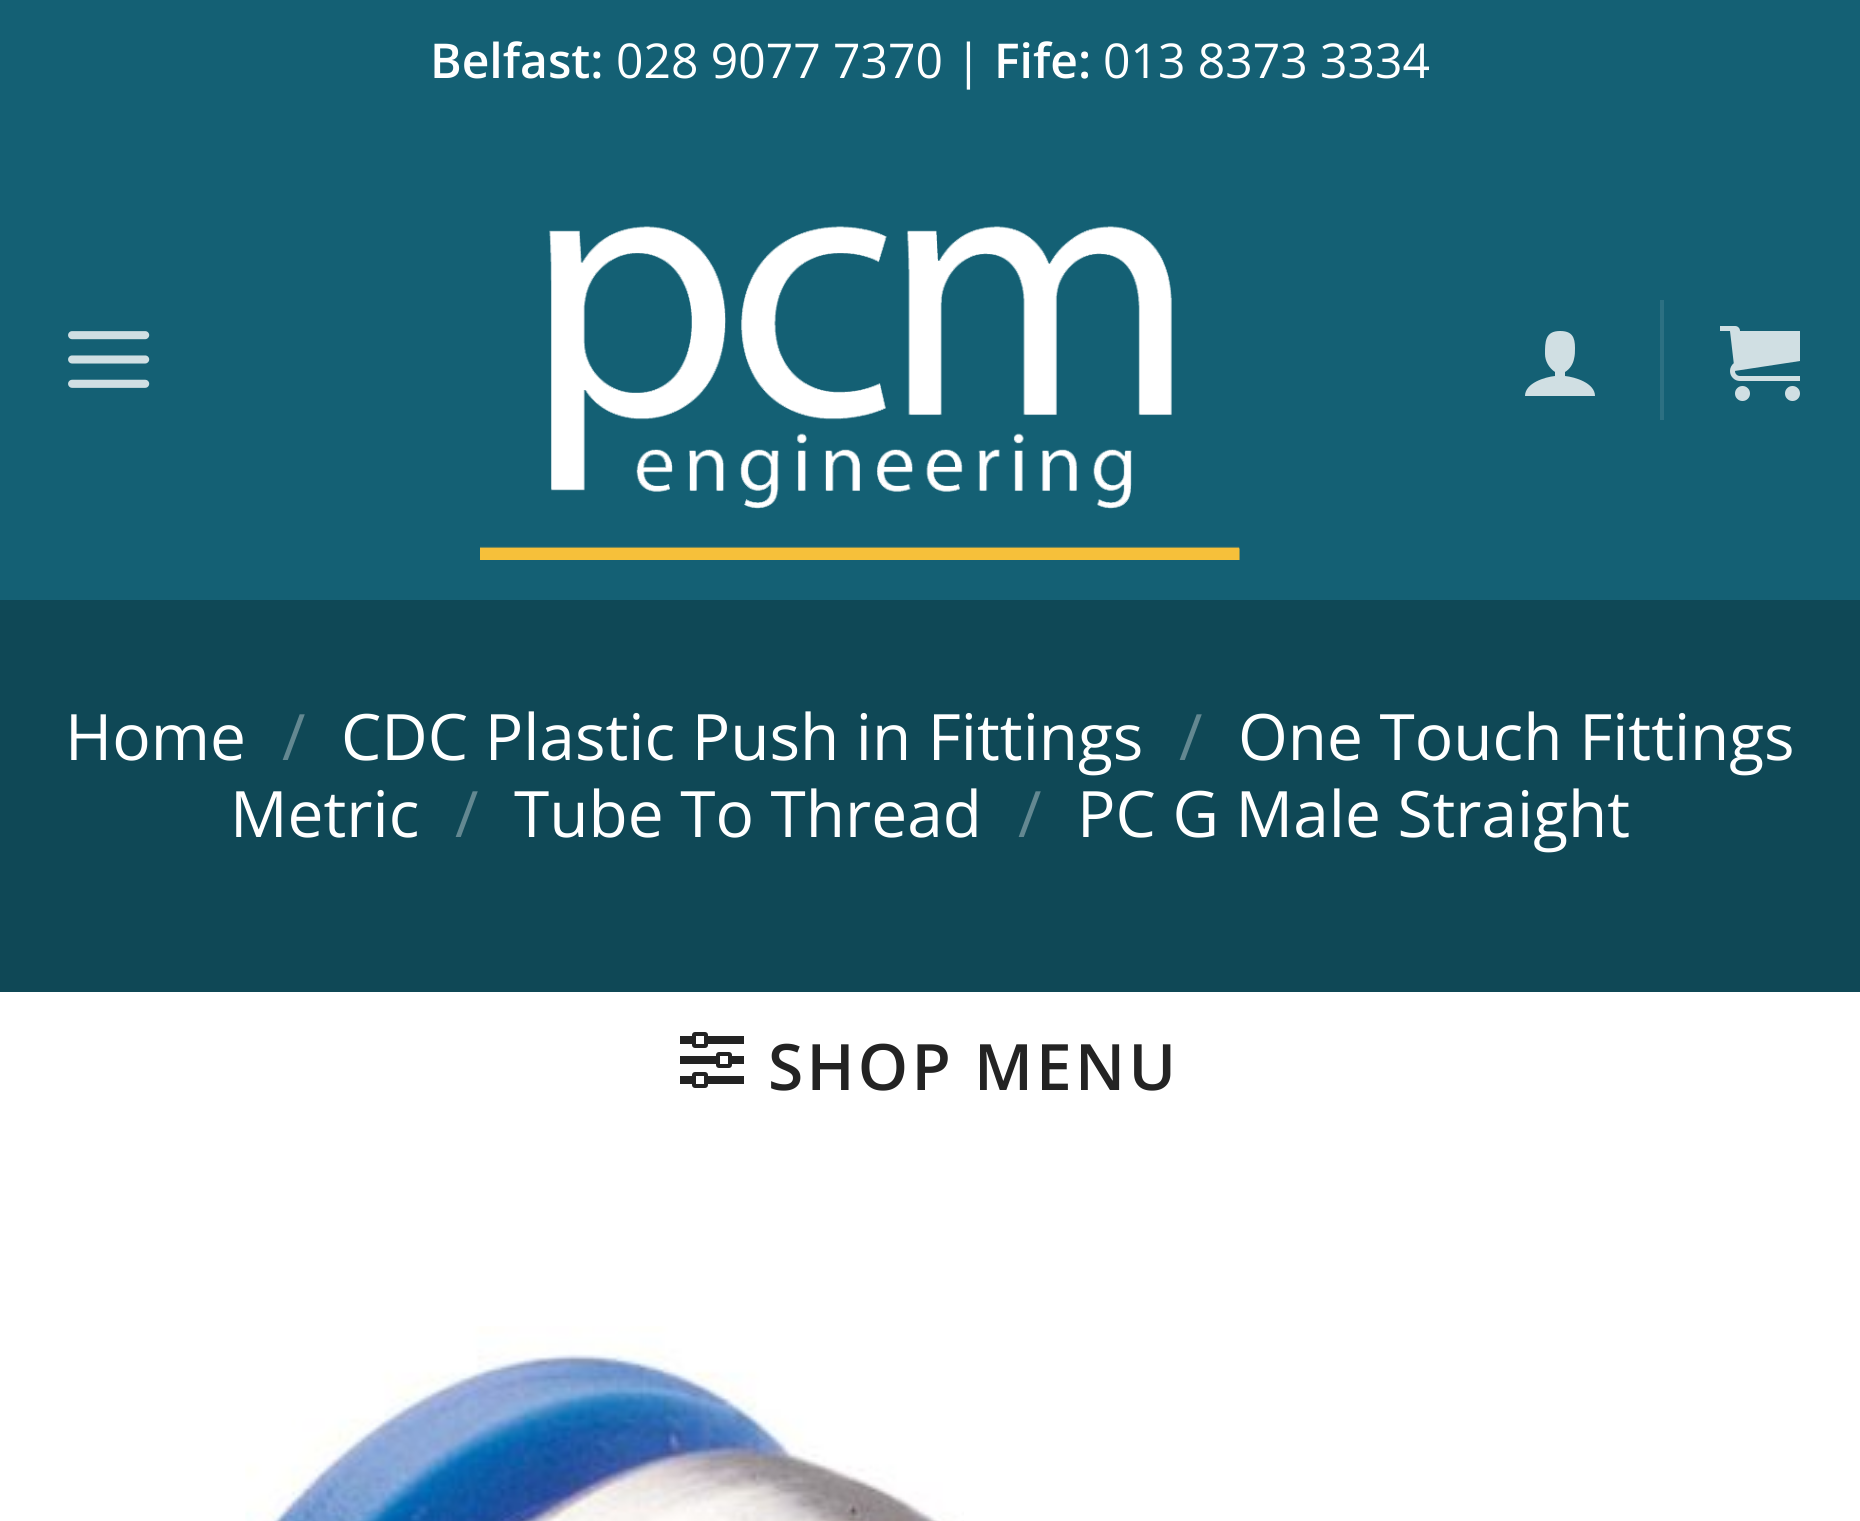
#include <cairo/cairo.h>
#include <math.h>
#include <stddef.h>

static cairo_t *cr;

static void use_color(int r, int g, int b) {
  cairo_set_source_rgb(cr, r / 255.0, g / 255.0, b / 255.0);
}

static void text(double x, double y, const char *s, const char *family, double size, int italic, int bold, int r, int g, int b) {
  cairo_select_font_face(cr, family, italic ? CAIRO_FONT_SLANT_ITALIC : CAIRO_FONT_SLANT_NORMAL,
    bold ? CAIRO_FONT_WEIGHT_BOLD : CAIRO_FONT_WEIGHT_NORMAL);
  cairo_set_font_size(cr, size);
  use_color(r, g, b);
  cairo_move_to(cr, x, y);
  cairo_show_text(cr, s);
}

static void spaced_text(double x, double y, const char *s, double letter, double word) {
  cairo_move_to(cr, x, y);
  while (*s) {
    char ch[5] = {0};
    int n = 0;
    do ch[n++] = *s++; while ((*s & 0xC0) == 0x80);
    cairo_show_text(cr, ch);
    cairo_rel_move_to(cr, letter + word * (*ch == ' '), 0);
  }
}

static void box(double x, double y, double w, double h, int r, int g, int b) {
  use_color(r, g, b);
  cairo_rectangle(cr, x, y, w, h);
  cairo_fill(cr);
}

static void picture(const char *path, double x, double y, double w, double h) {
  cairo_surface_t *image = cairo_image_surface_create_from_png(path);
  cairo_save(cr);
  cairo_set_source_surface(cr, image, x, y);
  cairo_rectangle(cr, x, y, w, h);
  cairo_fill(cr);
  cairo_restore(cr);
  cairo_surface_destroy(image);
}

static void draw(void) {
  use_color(255, 255, 255);
  cairo_paint(cr);
  box(0, 0, 1860, 600, 20, 96, 116);
  picture("img_01.png", 68, 331, 82, 57);
  picture("img_02.png", 480, 226, 760, 334);
  use_color(208, 223, 227);
  cairo_new_path(cr);
  cairo_move_to(cr, 1565, 376);
  cairo_line_to(cr, 1565, 372);
  cairo_curve_to(cr, 1570, 369, 1573, 364, 1574, 359);
  cairo_curve_to(cr, 1575, 355, 1575, 352, 1575, 348);
  cairo_curve_to(cr, 1575, 337, 1572, 331, 1560, 331);
  cairo_curve_to(cr, 1545, 331, 1545, 342, 1545, 354);
  cairo_curve_to(cr, 1545, 361, 1549, 368, 1555, 372);
  cairo_line_to(cr, 1555, 376);
  cairo_curve_to(cr, 1545, 377, 1525, 383, 1525, 396);
  cairo_line_to(cr, 1595, 396);
  cairo_curve_to(cr, 1595, 383, 1575, 377, 1565, 376);
  cairo_close_path(cr);
  cairo_fill(cr);
  box(1660, 300, 4, 120, 44, 112, 130);
  picture("img_03.png", 1720, 326, 80, 75);
  box(0, 600, 1860, 392, 15, 72, 86);
  picture("img_04.png", 680, 1032, 64, 56);
  picture("img_05.png", 245, 1326, 719, 195);
  text(430, 78, "Belfast:", "Open Sans SemiBold", 48, 0, 0, 255, 255, 255);
  text(616, 78, "028 9077 7370 |", "Open Sans", 48, 0, 0, 255, 255, 255);
  text(994, 78, "Fife:", "Open Sans SemiBold", 48, 0, 0, 255, 255, 255);
  text(1103, 78, "013 8373 3334", "Open Sans", 48, 0, 0, 255, 255, 255);
  text(65, 760, "Home", "Open Sans", 64, 0, 0, 255, 255, 255);
  text(282, 760, "/", "Open Sans", 64, 0, 0, 99, 136, 145);
  text(341, 760, "CDC Plastic Push in Fittings", "Open Sans", 64, 0, 0, 255, 255, 255);
  text(1179, 760, "/", "Open Sans", 64, 0, 0, 99, 136, 145);
  text(1238, 760, "One Touch Fittings", "Open Sans", 64, 0, 0, 255, 255, 255);
  text(230, 837, "Metric", "Open Sans", 64, 0, 0, 255, 255, 255);
  text(455, 837, "/", "Open Sans", 64, 0, 0, 99, 136, 145);
  text(514, 837, "Tube To Thread", "Open Sans", 64, 0, 0, 255, 255, 255);
  text(1018, 837, "/", "Open Sans", 64, 0, 0, 99, 136, 145);
  text(1077, 837, "PC G Male Straight", "Open Sans", 64, 0, 0, 255, 255, 255);
  cairo_select_font_face(cr, "Open Sans SemiBold", CAIRO_FONT_SLANT_NORMAL, CAIRO_FONT_WEIGHT_NORMAL);
  use_color(35, 35, 35);
  spaced_text(768, 1090, "SHOP MENU", 3.25, 0);
}

int main(void) {
  cairo_surface_t *surface = cairo_image_surface_create(CAIRO_FORMAT_RGB24, 1860, 1521);
  cr = cairo_create(surface);
  cairo_font_options_t *options = cairo_font_options_create();
  cairo_font_options_set_hint_metrics(options, CAIRO_HINT_METRICS_OFF);
  cairo_font_options_set_hint_style(options, CAIRO_HINT_STYLE_NONE);
  cairo_set_font_options(cr, options);
  cairo_set_miter_limit(cr, 4);
  draw();
  cairo_surface_write_to_png(surface, "out.png");
  cairo_font_options_destroy(options);
  cairo_destroy(cr);
  cairo_surface_destroy(surface);
  return 0;
}
